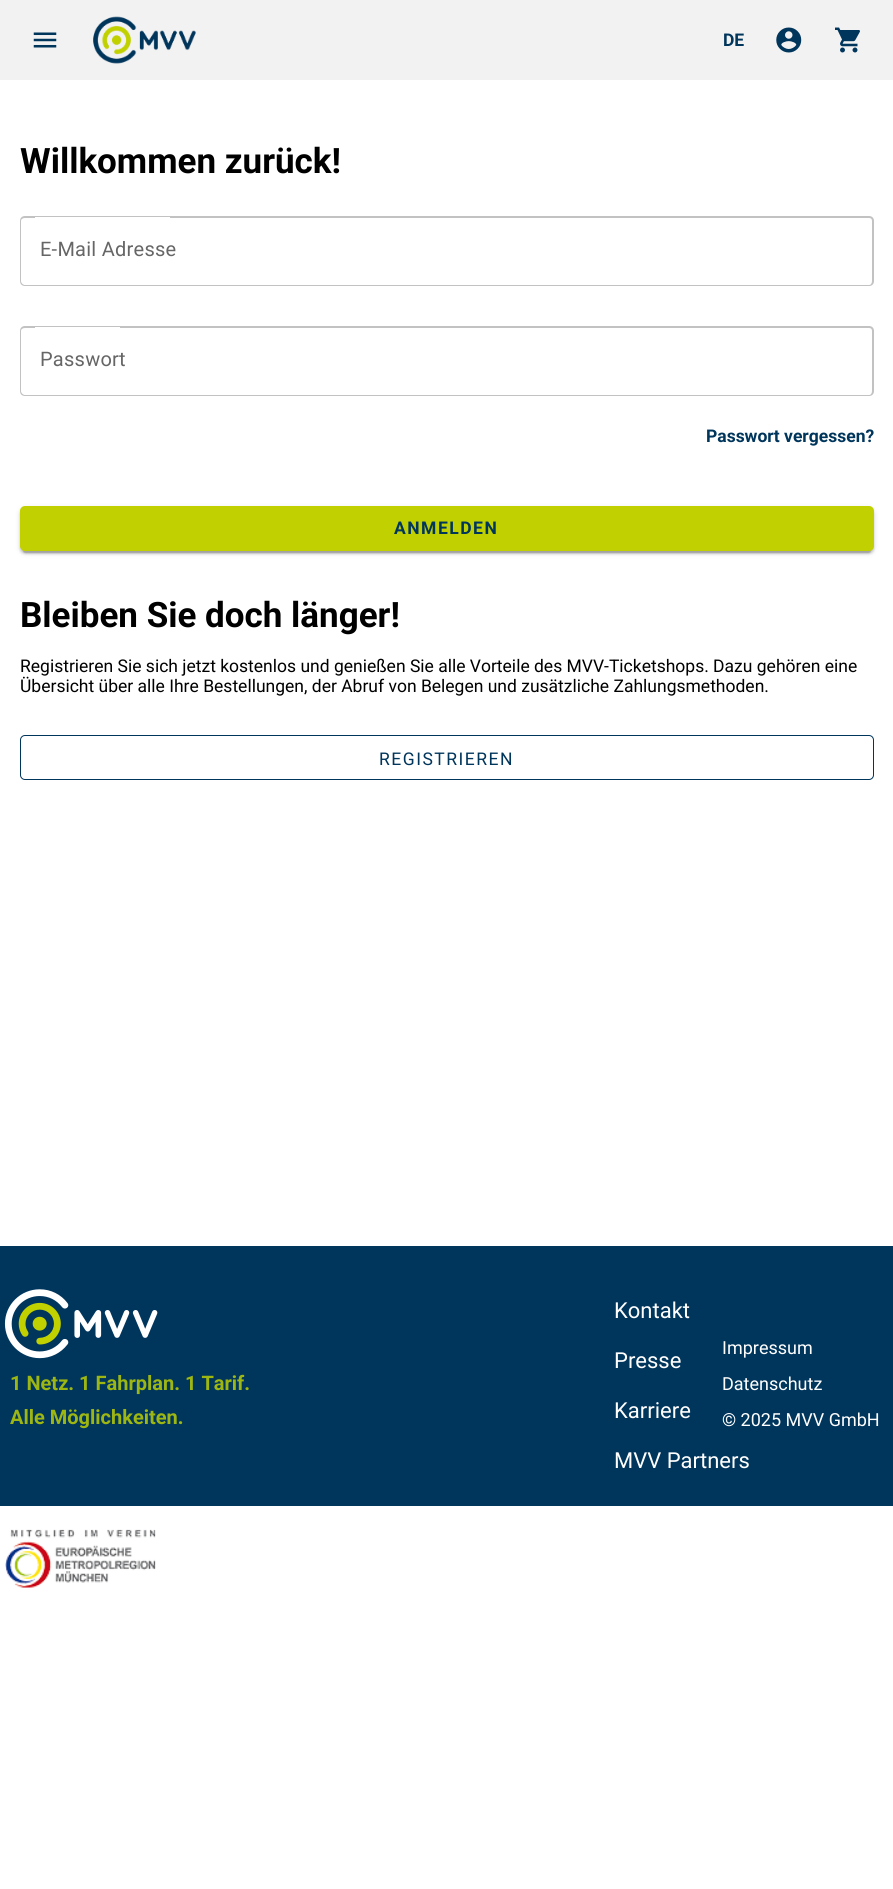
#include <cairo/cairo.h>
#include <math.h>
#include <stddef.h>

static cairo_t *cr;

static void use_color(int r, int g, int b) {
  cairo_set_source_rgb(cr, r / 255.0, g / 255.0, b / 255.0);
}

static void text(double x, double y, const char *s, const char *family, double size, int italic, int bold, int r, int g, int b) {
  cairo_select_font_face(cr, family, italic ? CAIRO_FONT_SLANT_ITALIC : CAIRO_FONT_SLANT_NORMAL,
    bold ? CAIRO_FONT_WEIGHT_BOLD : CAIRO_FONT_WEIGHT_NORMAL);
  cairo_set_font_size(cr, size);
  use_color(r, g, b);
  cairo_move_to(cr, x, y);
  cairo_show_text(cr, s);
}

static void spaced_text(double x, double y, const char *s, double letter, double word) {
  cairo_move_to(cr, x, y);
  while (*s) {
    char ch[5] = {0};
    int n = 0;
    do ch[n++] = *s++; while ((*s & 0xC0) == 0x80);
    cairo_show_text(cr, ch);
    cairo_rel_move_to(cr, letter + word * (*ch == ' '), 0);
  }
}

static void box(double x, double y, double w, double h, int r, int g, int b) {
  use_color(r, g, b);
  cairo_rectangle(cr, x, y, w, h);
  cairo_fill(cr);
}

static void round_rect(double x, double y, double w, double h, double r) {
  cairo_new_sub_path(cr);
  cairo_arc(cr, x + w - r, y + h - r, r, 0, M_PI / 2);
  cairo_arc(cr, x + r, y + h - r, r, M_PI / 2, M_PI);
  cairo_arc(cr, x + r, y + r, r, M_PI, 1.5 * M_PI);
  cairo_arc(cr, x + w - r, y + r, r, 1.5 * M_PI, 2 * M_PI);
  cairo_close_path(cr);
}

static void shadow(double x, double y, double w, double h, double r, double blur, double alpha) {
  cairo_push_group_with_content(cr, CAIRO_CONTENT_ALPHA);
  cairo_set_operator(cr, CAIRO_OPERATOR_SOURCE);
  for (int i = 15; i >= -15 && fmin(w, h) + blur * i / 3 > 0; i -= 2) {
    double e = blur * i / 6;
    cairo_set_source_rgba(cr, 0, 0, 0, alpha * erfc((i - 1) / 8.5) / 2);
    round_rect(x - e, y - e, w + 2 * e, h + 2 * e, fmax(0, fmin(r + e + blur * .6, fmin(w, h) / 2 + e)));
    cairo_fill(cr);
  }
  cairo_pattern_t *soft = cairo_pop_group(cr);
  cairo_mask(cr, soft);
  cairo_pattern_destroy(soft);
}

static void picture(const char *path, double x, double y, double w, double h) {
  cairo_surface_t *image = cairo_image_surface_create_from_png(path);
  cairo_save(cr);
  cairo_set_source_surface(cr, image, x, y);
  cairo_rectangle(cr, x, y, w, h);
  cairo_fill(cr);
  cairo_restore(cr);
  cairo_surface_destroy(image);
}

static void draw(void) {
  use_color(255, 255, 255);
  cairo_paint(cr);
  box(0, 0, 893, 80, 242, 242, 242);
  picture("img_01.png", 33, 32, 24, 16);
  picture("img_02.png", 93, 16, 103, 48);
  picture("img_03.png", 776, 27, 26, 26);
  picture("img_04.png", 835, 27, 25, 26);
  use_color(194, 194, 194);
  cairo_set_fill_rule(cr, CAIRO_FILL_RULE_EVEN_ODD);
  cairo_new_path(cr);
  cairo_move_to(cr, 25, 216);
  cairo_line_to(cr, 35, 216);
  cairo_line_to(cr, 35, 286);
  cairo_line_to(cr, 25, 286);
  cairo_curve_to(cr, 22, 286, 20, 284, 20, 281);
  cairo_line_to(cr, 20, 221);
  cairo_curve_to(cr, 20, 218, 22, 216, 25, 216);
  cairo_close_path(cr);
  cairo_move_to(cr, 25, 218);
  cairo_line_to(cr, 35, 218);
  cairo_line_to(cr, 35, 285);
  cairo_line_to(cr, 25, 285);
  cairo_curve_to(cr, 23, 285, 21, 283, 21, 281);
  cairo_line_to(cr, 21, 221);
  cairo_curve_to(cr, 21, 219, 23, 218, 25, 218);
  cairo_close_path(cr);
  cairo_fill(cr);
  box(35, 216, 135, 1, 194, 194, 194);
  box(35, 285, 135, 1, 194, 194, 194);
  cairo_new_path(cr);
  cairo_move_to(cr, 170, 216);
  cairo_line_to(cr, 869, 216);
  cairo_curve_to(cr, 872, 216, 874, 218, 874, 221);
  cairo_line_to(cr, 874, 281);
  cairo_curve_to(cr, 874, 284, 872, 286, 869, 286);
  cairo_line_to(cr, 170, 286);
  cairo_close_path(cr);
  cairo_move_to(cr, 170, 218);
  cairo_line_to(cr, 869, 218);
  cairo_curve_to(cr, 871, 218, 872, 219, 872, 221);
  cairo_line_to(cr, 872, 281);
  cairo_curve_to(cr, 872, 283, 871, 285, 869, 285);
  cairo_line_to(cr, 170, 285);
  cairo_close_path(cr);
  cairo_fill(cr);
  cairo_new_path(cr);
  cairo_move_to(cr, 25, 326);
  cairo_line_to(cr, 35, 326);
  cairo_line_to(cr, 35, 396);
  cairo_line_to(cr, 25, 396);
  cairo_curve_to(cr, 22, 396, 20, 394, 20, 391);
  cairo_line_to(cr, 20, 331);
  cairo_curve_to(cr, 20, 328, 22, 326, 25, 326);
  cairo_close_path(cr);
  cairo_move_to(cr, 25, 328);
  cairo_line_to(cr, 35, 328);
  cairo_line_to(cr, 35, 395);
  cairo_line_to(cr, 25, 395);
  cairo_curve_to(cr, 23, 395, 21, 393, 21, 391);
  cairo_line_to(cr, 21, 331);
  cairo_curve_to(cr, 21, 329, 23, 328, 25, 328);
  cairo_close_path(cr);
  cairo_fill(cr);
  box(35, 326, 85, 1, 194, 194, 194);
  box(35, 395, 85, 1, 194, 194, 194);
  cairo_new_path(cr);
  cairo_move_to(cr, 120, 326);
  cairo_line_to(cr, 869, 326);
  cairo_curve_to(cr, 872, 326, 874, 328, 874, 331);
  cairo_line_to(cr, 874, 391);
  cairo_curve_to(cr, 874, 394, 872, 396, 869, 396);
  cairo_line_to(cr, 120, 396);
  cairo_close_path(cr);
  cairo_move_to(cr, 120, 328);
  cairo_line_to(cr, 869, 328);
  cairo_curve_to(cr, 871, 328, 872, 329, 872, 331);
  cairo_line_to(cr, 872, 391);
  cairo_curve_to(cr, 872, 393, 871, 395, 869, 395);
  cairo_line_to(cr, 120, 395);
  cairo_close_path(cr);
  cairo_fill(cr);
  use_color(0, 0, 0);
  shadow(20, 508, 854, 45, 5, 3, 0.12);
  shadow(20, 509, 854, 45, 5, 1, 0.14);
  shadow(23, 513, 848, 40, 2.5, 0.5, 0.2);
  use_color(192, 208, 0);
  round_rect(20, 506, 854, 45, 5);
  cairo_fill(cr);
  round_rect(20.5, 735.5, 853, 44, 4.5);
  use_color(0, 53, 92);
  cairo_set_line_width(cr, 1);
  cairo_stroke(cr);
  box(0, 1246, 893, 260, 0, 53, 92);
  picture("img_05.png", 4, 1289, 154, 70);
  picture("img_06.png", 5, 1529, 151, 59);
  text(723, 46, "DE", "Roboto", 17.5, 0, 1, 0, 53, 92);
  text(20, 173, "Willkommen zurück!", "Roboto", 35, 0, 1, 0, 0, 0);
  cairo_select_font_face(cr, "Roboto", CAIRO_FONT_SLANT_NORMAL, CAIRO_FONT_WEIGHT_NORMAL);
  cairo_set_font_size(cr, 20);
  use_color(102, 102, 102);
  spaced_text(40, 256, "E-Mail Adresse", 0.25, 0);
  spaced_text(40, 366, "Passwort", 0.25, 0);
  text(706, 442, "Passwort vergessen?", "Roboto", 17.5, 0, 1, 0, 53, 92);
  spaced_text(394, 534, "ANMELDEN", 1.5, 0);
  text(20, 627, "Bleiben Sie doch länger!", "Roboto", 35, 0, 1, 0, 0, 0);
  text(20, 672, "Registrieren Sie sich jetzt kostenlos und genießen Sie alle Vorteile des MVV-Ticketshops. Dazu gehören eine", "Roboto", 17.5, 0, 0, 0, 0, 0);
  text(20, 692, "Übersicht über alle Ihre Bestellungen, der Abruf von Belegen und zusätzliche Zahlungsmethoden.", "Roboto", 17.5, 0, 0, 0, 0, 0);
  use_color(0, 53, 92);
  spaced_text(379, 765, "REGISTRIEREN", 1.5, 0);
  text(10, 1390, "1 Netz. 1 Fahrplan. 1 Tarif.", "Roboto", 20, 0, 1, 157, 182, 18);
  text(10, 1424, "Alle Möglichkeiten.", "Roboto", 20, 0, 1, 157, 182, 18);
  text(614, 1318, "Kontakt", "Roboto", 22, 0, 0, 255, 255, 255);
  text(614, 1368, "Presse", "Roboto", 22, 0, 0, 255, 255, 255);
  text(614, 1418, "Karriere", "Roboto", 22, 0, 0, 255, 255, 255);
  text(614, 1468, "MVV Partners", "Roboto", 22, 0, 0, 255, 255, 255);
  text(722, 1354, "Impressum", "Roboto", 18, 0, 0, 255, 255, 255);
  text(722, 1390, "Datenschutz", "Roboto", 18, 0, 0, 255, 255, 255);
  text(722, 1426, "© 2025 MVV GmbH", "Roboto", 18, 0, 0, 255, 255, 255);
}

int main(void) {
  cairo_surface_t *surface = cairo_image_surface_create(CAIRO_FORMAT_RGB24, 893, 1889);
  cr = cairo_create(surface);
  cairo_font_options_t *options = cairo_font_options_create();
  cairo_font_options_set_hint_metrics(options, CAIRO_HINT_METRICS_OFF);
  cairo_font_options_set_hint_style(options, CAIRO_HINT_STYLE_NONE);
  cairo_set_font_options(cr, options);
  cairo_set_miter_limit(cr, 4);
  draw();
  cairo_surface_write_to_png(surface, "out.png");
  cairo_font_options_destroy(options);
  cairo_destroy(cr);
  cairo_surface_destroy(surface);
  return 0;
}
